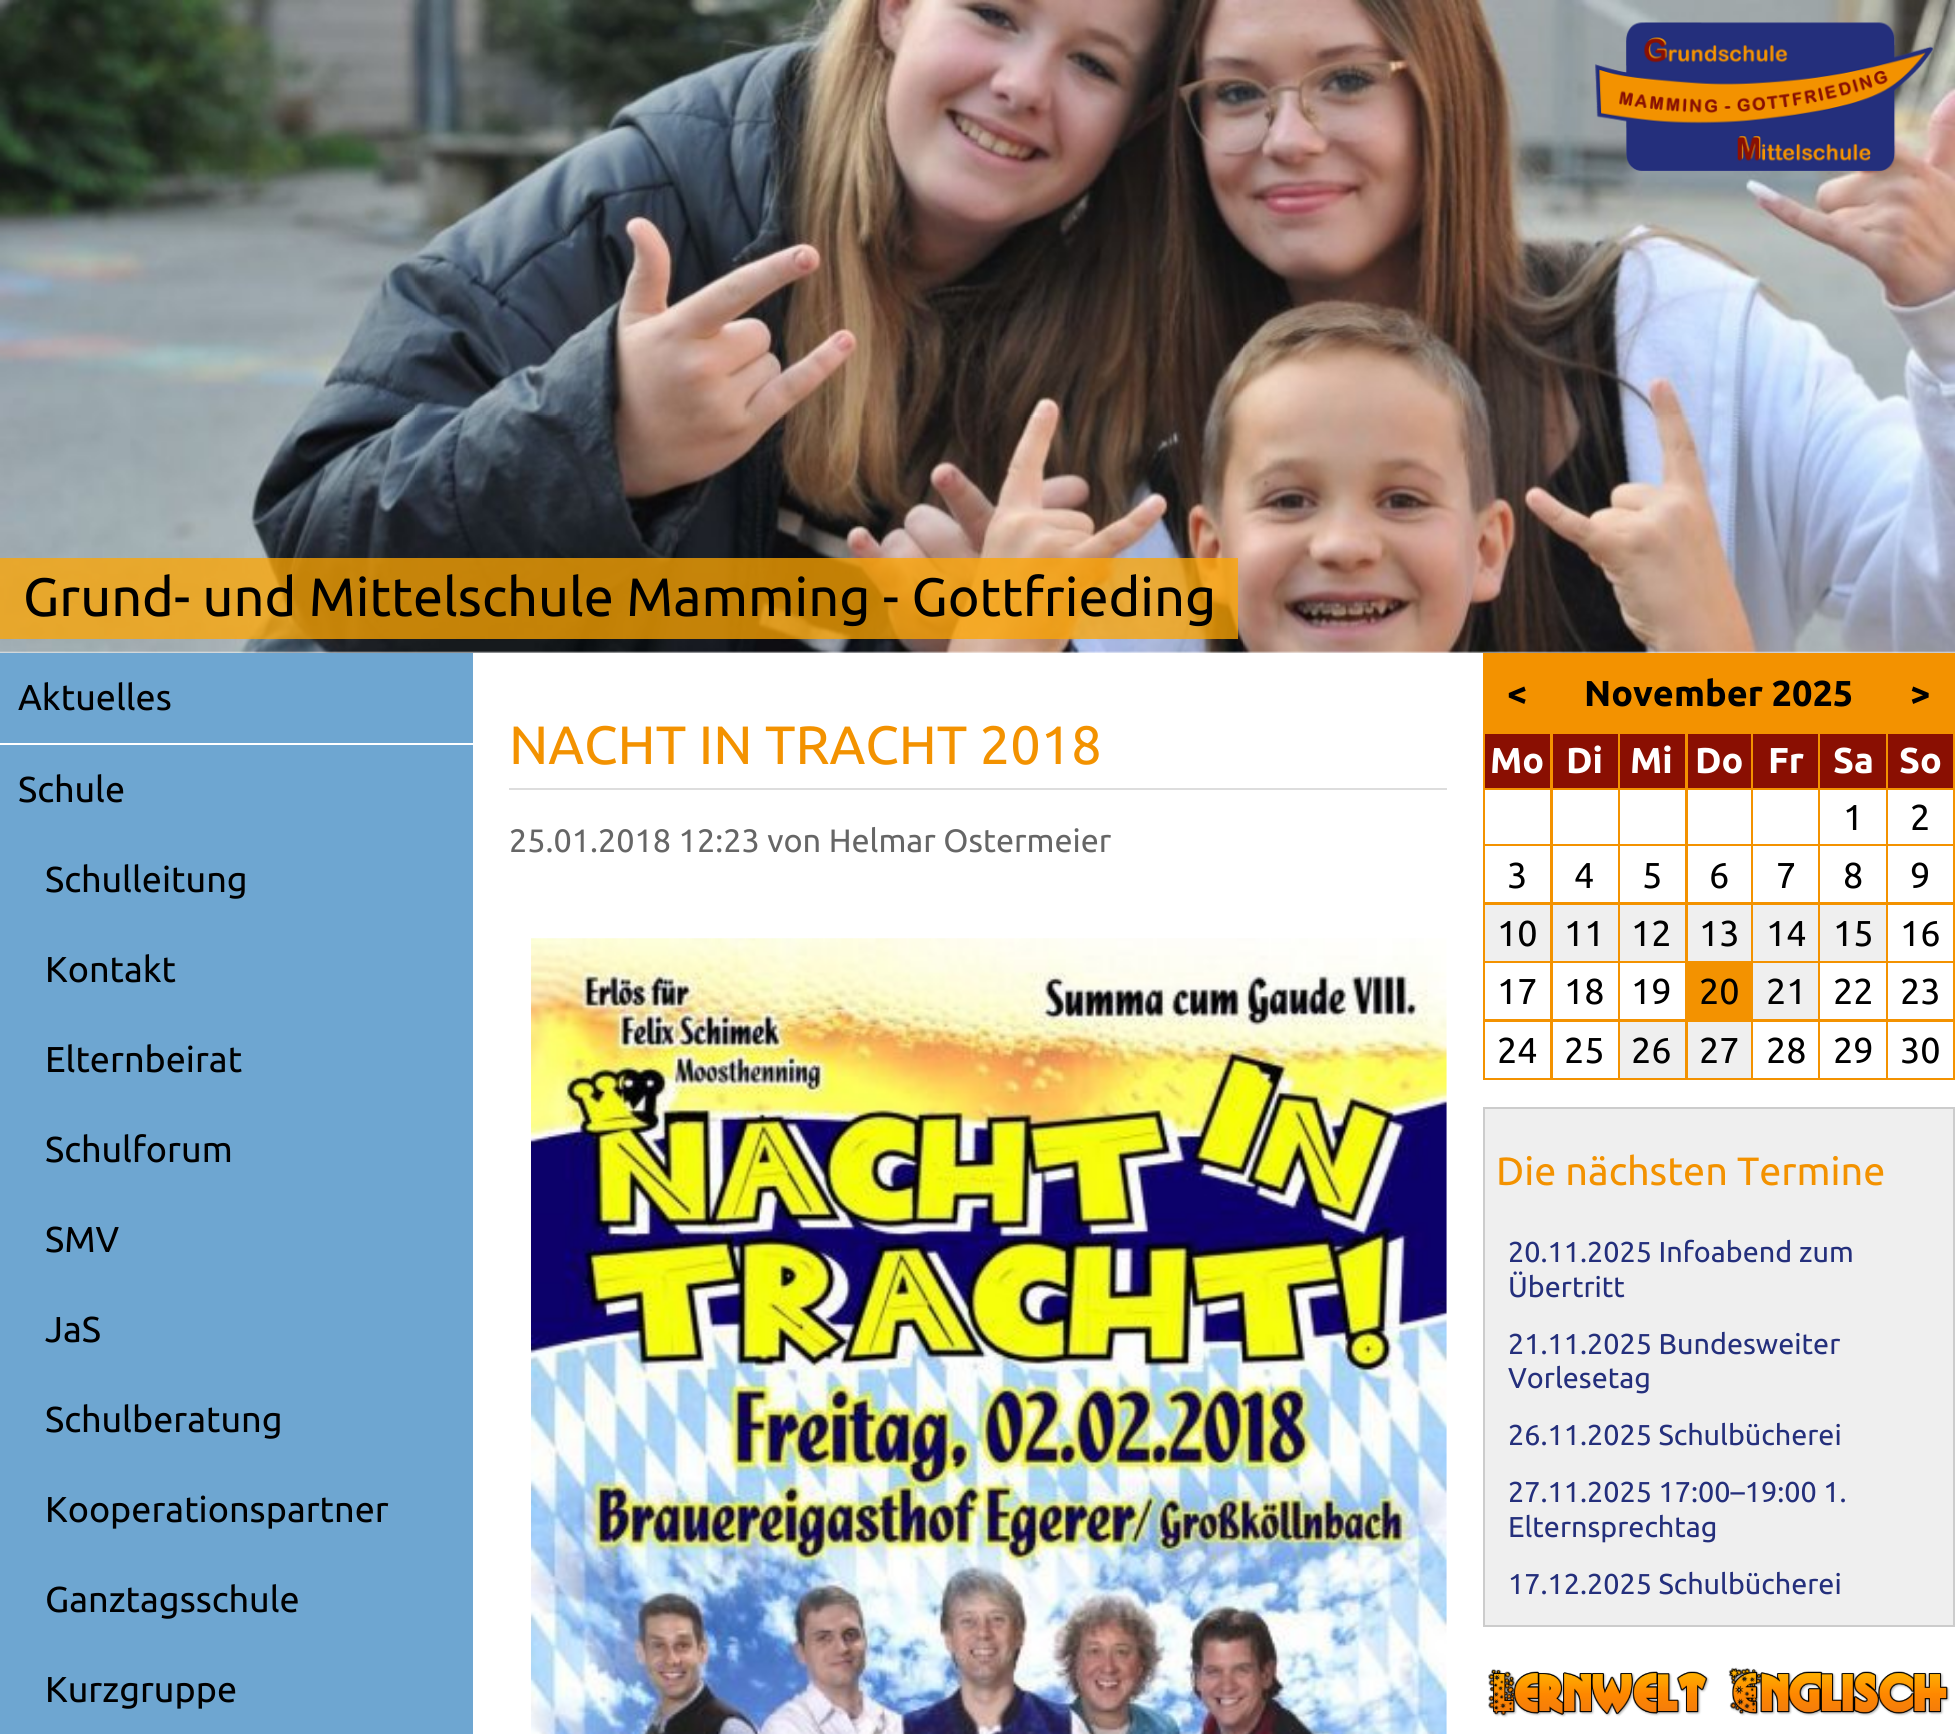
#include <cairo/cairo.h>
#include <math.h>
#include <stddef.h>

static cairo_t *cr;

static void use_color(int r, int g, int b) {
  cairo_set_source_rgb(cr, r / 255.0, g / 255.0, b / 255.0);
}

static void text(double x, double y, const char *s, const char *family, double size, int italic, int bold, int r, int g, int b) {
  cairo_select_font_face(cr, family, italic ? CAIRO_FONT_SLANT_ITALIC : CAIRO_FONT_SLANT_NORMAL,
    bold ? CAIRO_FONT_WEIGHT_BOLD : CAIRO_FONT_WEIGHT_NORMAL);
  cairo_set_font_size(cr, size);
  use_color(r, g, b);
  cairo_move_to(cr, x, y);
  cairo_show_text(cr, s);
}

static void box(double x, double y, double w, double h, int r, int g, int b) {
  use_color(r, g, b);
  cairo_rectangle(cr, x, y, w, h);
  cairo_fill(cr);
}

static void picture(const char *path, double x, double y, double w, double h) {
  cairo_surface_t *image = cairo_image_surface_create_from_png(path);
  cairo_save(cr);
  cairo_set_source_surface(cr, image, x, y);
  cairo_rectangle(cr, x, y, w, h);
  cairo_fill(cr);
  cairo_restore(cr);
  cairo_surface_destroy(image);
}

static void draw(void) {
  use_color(255, 255, 255);
  cairo_paint(cr);
  picture("img_02.png", 0, 0, 1955, 653);
  picture("img_01.png", 1595, 22, 338, 149);
  cairo_set_source_rgba(cr, 1, 0.647, 0, 0.75);
  cairo_rectangle(cr, 0, 558, 1238, 81);
  cairo_fill(cr);
  box(0, 653, 473, 1081, 110, 166, 209);
  box(0, 743, 473, 2, 255, 255, 255);
  box(509, 788, 938, 2, 221, 221, 221);
  picture("img_03.png", 531, 938, 916, 796);
  box(1483, 653, 472, 427, 243, 146, 0);
  box(1485, 734, 65, 54, 138, 15, 2);
  box(1553, 734, 65, 54, 138, 15, 2);
  box(1620, 734, 65, 54, 138, 15, 2);
  box(1688, 734, 63, 54, 138, 15, 2);
  box(1753, 734, 65, 54, 138, 15, 2);
  box(1820, 734, 66, 54, 138, 15, 2);
  box(1888, 734, 65, 54, 138, 15, 2);
  box(1485, 790, 65, 54, 255, 255, 255);
  box(1553, 790, 65, 54, 255, 255, 255);
  box(1620, 790, 65, 54, 255, 255, 255);
  box(1688, 790, 63, 54, 255, 255, 255);
  box(1753, 790, 65, 54, 255, 255, 255);
  box(1820, 790, 66, 54, 255, 255, 255);
  box(1888, 790, 65, 54, 255, 255, 255);
  box(1485, 846, 65, 56, 255, 255, 255);
  box(1553, 846, 65, 56, 255, 255, 255);
  box(1620, 846, 65, 56, 255, 255, 255);
  box(1688, 846, 63, 56, 255, 255, 255);
  box(1753, 846, 65, 56, 255, 255, 255);
  box(1820, 846, 66, 56, 255, 255, 255);
  box(1888, 846, 65, 56, 255, 255, 255);
  box(1485, 905, 65, 56, 239, 239, 239);
  box(1553, 905, 65, 56, 239, 239, 239);
  box(1620, 905, 65, 56, 239, 239, 239);
  box(1688, 905, 63, 56, 239, 239, 239);
  box(1753, 905, 65, 56, 239, 239, 239);
  box(1820, 905, 66, 56, 239, 239, 239);
  box(1888, 905, 65, 56, 255, 255, 255);
  box(1485, 963, 65, 56, 255, 255, 255);
  box(1553, 963, 65, 56, 255, 255, 255);
  box(1620, 963, 65, 56, 255, 255, 255);
  box(1753, 963, 65, 56, 239, 239, 239);
  box(1820, 963, 66, 56, 255, 255, 255);
  box(1888, 963, 65, 56, 255, 255, 255);
  box(1485, 1022, 65, 56, 255, 255, 255);
  box(1553, 1022, 65, 56, 255, 255, 255);
  box(1620, 1022, 65, 56, 239, 239, 239);
  box(1688, 1022, 63, 56, 239, 239, 239);
  box(1753, 1022, 65, 56, 255, 255, 255);
  box(1820, 1022, 66, 56, 255, 255, 255);
  box(1888, 1022, 65, 56, 255, 255, 255);
  use_color(239, 239, 239);
  cairo_rectangle(cr, 1484, 1108, 470, 518);
  cairo_fill_preserve(cr);
  use_color(204, 204, 204);
  cairo_stroke(cr);
  picture("img_04.png", 1488, 1667, 462, 51);
  text(23, 616, "Grund- und Mittelschule Mamming - Gottfrieding", "Ubuntu", 54, 0, 0, 0, 0, 0);
  text(18, 710, "Aktuelles", "Ubuntu", 36, 0, 0, 0, 0, 0);
  text(18, 802, "Schule", "Ubuntu", 36, 0, 0, 0, 0, 0);
  text(45, 892, "Schulleitung", "Ubuntu", 36, 0, 0, 0, 0, 0);
  text(45, 982, "Kontakt", "Ubuntu", 36, 0, 0, 0, 0, 0);
  text(45, 1072, "Elternbeirat", "Ubuntu", 36, 0, 0, 0, 0, 0);
  text(45, 1162, "Schulforum", "Ubuntu", 36, 0, 0, 0, 0, 0);
  text(45, 1252, "SMV", "Ubuntu", 36, 0, 0, 0, 0, 0);
  text(45, 1342, "JaS", "Ubuntu", 36, 0, 0, 0, 0, 0);
  text(45, 1432, "Schulberatung", "Ubuntu", 36, 0, 0, 0, 0, 0);
  text(45, 1522, "Kooperationspartner", "Ubuntu", 36, 0, 0, 0, 0, 0);
  text(45, 1612, "Ganztagsschule", "Ubuntu", 36, 0, 0, 0, 0, 0);
  text(45, 1702, "Kurzgruppe", "Ubuntu", 36, 0, 0, 0, 0, 0);
  text(509, 764, "NACHT IN TRACHT 2018", "Ubuntu", 54, 0, 0, 243, 146, 0);
  text(509, 852, "25.01.2018 12:23 von Helmar Ostermeier", "Ubuntu", 32.4, 0, 0, 102, 102, 102);
  text(1507, 706, "<", "Ubuntu", 36, 0, 1, 0, 0, 0);
  text(1584, 706, "November 2025", "Ubuntu", 36, 0, 1, 0, 0, 0);
  text(1910, 706, ">", "Ubuntu", 36, 0, 1, 0, 0, 0);
  text(1490, 773, "Mo", "Ubuntu", 36, 0, 1, 255, 255, 255);
  text(1566, 773, "Di", "Ubuntu", 36, 0, 1, 255, 255, 255);
  text(1630, 773, "Mi", "Ubuntu", 36, 0, 1, 255, 255, 255);
  text(1695, 773, "Do", "Ubuntu", 36, 0, 1, 255, 255, 255);
  text(1768, 773, "Fr", "Ubuntu", 36, 0, 1, 255, 255, 255);
  text(1833, 773, "Sa", "Ubuntu", 36, 0, 1, 255, 255, 255);
  text(1899, 773, "So", "Ubuntu", 36, 0, 1, 255, 255, 255);
  text(1843, 830, "1", "Ubuntu", 36, 0, 0, 0, 0, 0);
  text(1910, 830, "2", "Ubuntu", 36, 0, 0, 0, 0, 0);
  text(1507, 888, "3", "Ubuntu", 36, 0, 0, 0, 0, 0);
  text(1574, 888, "4", "Ubuntu", 36, 0, 0, 0, 0, 0);
  text(1642, 888, "5", "Ubuntu", 36, 0, 0, 0, 0, 0);
  text(1709, 888, "6", "Ubuntu", 36, 0, 0, 0, 0, 0);
  text(1776, 888, "7", "Ubuntu", 36, 0, 0, 0, 0, 0);
  text(1843, 888, "8", "Ubuntu", 36, 0, 0, 0, 0, 0);
  text(1910, 888, "9", "Ubuntu", 36, 0, 0, 0, 0, 0);
  text(1497, 946, "10", "Ubuntu", 36, 0, 0, 0, 0, 0);
  text(1564, 946, "11", "Ubuntu", 36, 0, 0, 0, 0, 0);
  text(1631, 946, "12", "Ubuntu", 36, 0, 0, 0, 0, 0);
  text(1699, 946, "13", "Ubuntu", 36, 0, 0, 0, 0, 0);
  text(1766, 946, "14", "Ubuntu", 36, 0, 0, 0, 0, 0);
  text(1833, 946, "15", "Ubuntu", 36, 0, 0, 0, 0, 0);
  text(1900, 946, "16", "Ubuntu", 36, 0, 0, 0, 0, 0);
  text(1497, 1004, "17", "Ubuntu", 36, 0, 0, 0, 0, 0);
  text(1564, 1004, "18", "Ubuntu", 36, 0, 0, 0, 0, 0);
  text(1631, 1004, "19", "Ubuntu", 36, 0, 0, 0, 0, 0);
  text(1699, 1004, "20", "Ubuntu", 36, 0, 0, 0, 0, 0);
  text(1766, 1004, "21", "Ubuntu", 36, 0, 0, 0, 0, 0);
  text(1833, 1004, "22", "Ubuntu", 36, 0, 0, 0, 0, 0);
  text(1900, 1004, "23", "Ubuntu", 36, 0, 0, 0, 0, 0);
  text(1497, 1063, "24", "Ubuntu", 36, 0, 0, 0, 0, 0);
  text(1564, 1063, "25", "Ubuntu", 36, 0, 0, 0, 0, 0);
  text(1631, 1063, "26", "Ubuntu", 36, 0, 0, 0, 0, 0);
  text(1699, 1063, "27", "Ubuntu", 36, 0, 0, 0, 0, 0);
  text(1766, 1063, "28", "Ubuntu", 36, 0, 0, 0, 0, 0);
  text(1833, 1063, "29", "Ubuntu", 36, 0, 0, 0, 0, 0);
  text(1900, 1063, "30", "Ubuntu", 36, 0, 0, 0, 0, 0);
  text(1496, 1185, "Die nächsten Termine", "Ubuntu", 39.5, 0, 0, 243, 146, 0);
  text(1508, 1262, "20.11.2025 Infoabend zum", "Ubuntu", 28.75, 0, 0, 36, 47, 124);
  text(1508, 1297, "Übertritt", "Ubuntu", 28.75, 0, 0, 36, 47, 124);
  text(1508, 1354, "21.11.2025 Bundesweiter", "Ubuntu", 28.75, 0, 0, 36, 47, 124);
  text(1508, 1388, "Vorlesetag", "Ubuntu", 28.75, 0, 0, 36, 47, 124);
  text(1508, 1445, "26.11.2025 Schulbücherei", "Ubuntu", 28.75, 0, 0, 36, 47, 124);
  text(1508, 1502, "27.11.2025 17:00–19:00 1.", "Ubuntu", 28.75, 0, 0, 36, 47, 124);
  text(1508, 1537, "Elternsprechtag", "Ubuntu", 28.75, 0, 0, 36, 47, 124);
  text(1508, 1594, "17.12.2025 Schulbücherei", "Ubuntu", 28.75, 0, 0, 36, 47, 124);
}

int main(void) {
  cairo_surface_t *surface = cairo_image_surface_create(CAIRO_FORMAT_RGB24, 1955, 1734);
  cr = cairo_create(surface);
  cairo_font_options_t *options = cairo_font_options_create();
  cairo_font_options_set_hint_metrics(options, CAIRO_HINT_METRICS_OFF);
  cairo_font_options_set_hint_style(options, CAIRO_HINT_STYLE_NONE);
  cairo_set_font_options(cr, options);
  cairo_set_miter_limit(cr, 4);
  draw();
  cairo_surface_write_to_png(surface, "out.png");
  cairo_font_options_destroy(options);
  cairo_destroy(cr);
  cairo_surface_destroy(surface);
  return 0;
}
